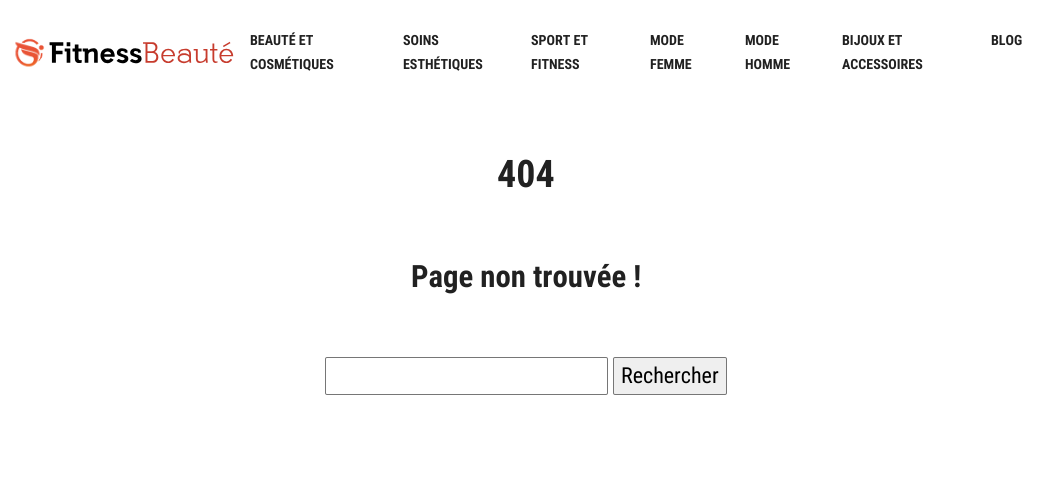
#include <cairo/cairo.h>
#include <math.h>
#include <stddef.h>

static cairo_t *cr;

static void use_color(int r, int g, int b) {
  cairo_set_source_rgb(cr, r / 255.0, g / 255.0, b / 255.0);
}

static void text(double x, double y, const char *s, const char *family, double size, int italic, int bold, int r, int g, int b) {
  cairo_select_font_face(cr, family, italic ? CAIRO_FONT_SLANT_ITALIC : CAIRO_FONT_SLANT_NORMAL,
    bold ? CAIRO_FONT_WEIGHT_BOLD : CAIRO_FONT_WEIGHT_NORMAL);
  cairo_set_font_size(cr, size);
  use_color(r, g, b);
  cairo_move_to(cr, x, y);
  cairo_show_text(cr, s);
}

static void round_rect(double x, double y, double w, double h, double r) {
  cairo_new_sub_path(cr);
  cairo_arc(cr, x + w - r, y + h - r, r, 0, M_PI / 2);
  cairo_arc(cr, x + r, y + h - r, r, M_PI / 2, M_PI);
  cairo_arc(cr, x + r, y + r, r, M_PI, 1.5 * M_PI);
  cairo_arc(cr, x + w - r, y + r, r, 1.5 * M_PI, 2 * M_PI);
  cairo_close_path(cr);
}

static void picture(const char *path, double x, double y, double w, double h) {
  cairo_surface_t *image = cairo_image_surface_create_from_png(path);
  cairo_save(cr);
  cairo_set_source_surface(cr, image, x, y);
  cairo_rectangle(cr, x, y, w, h);
  cairo_fill(cr);
  cairo_restore(cr);
  cairo_surface_destroy(image);
}

static void draw(void) {
  use_color(255, 255, 255);
  cairo_paint(cr);
  picture("img_01.png", 15, 38, 219, 29);
  round_rect(325.5, 357.5, 282, 37, 1.5);
  use_color(118, 118, 118);
  cairo_set_line_width(cr, 1);
  cairo_stroke(cr);
  use_color(239, 239, 239);
  round_rect(613.5, 357.5, 113, 37, 1.5);
  cairo_fill_preserve(cr);
  use_color(118, 118, 118);
  cairo_stroke(cr);
  text(250, 45, "BEAUTÉ ET", "Roboto Condensed", 14, 0, 1, 33, 33, 33);
  text(250, 69, "COSMÉTIQUES", "Roboto Condensed", 14, 0, 1, 33, 33, 33);
  text(403, 45, "SOINS", "Roboto Condensed", 14, 0, 1, 33, 33, 33);
  text(403, 69, "ESTHÉTIQUES", "Roboto Condensed", 14, 0, 1, 33, 33, 33);
  text(531, 45, "SPORT ET", "Roboto Condensed", 14, 0, 1, 33, 33, 33);
  text(531, 69, "FITNESS", "Roboto Condensed", 14, 0, 1, 33, 33, 33);
  text(650, 45, "MODE", "Roboto Condensed", 14, 0, 1, 33, 33, 33);
  text(650, 69, "FEMME", "Roboto Condensed", 14, 0, 1, 33, 33, 33);
  text(745, 45, "MODE", "Roboto Condensed", 14, 0, 1, 33, 33, 33);
  text(745, 69, "HOMME", "Roboto Condensed", 14, 0, 1, 33, 33, 33);
  text(842, 45, "BIJOUX ET", "Roboto Condensed", 14, 0, 1, 33, 33, 33);
  text(842, 69, "ACCESSOIRES", "Roboto Condensed", 14, 0, 1, 33, 33, 33);
  text(991, 45, "BLOG", "Roboto Condensed", 14, 0, 1, 33, 33, 33);
  text(497, 187, "404", "Roboto Condensed", 38, 0, 1, 33, 33, 33);
  text(411, 287, "Page non trouvée !", "Roboto Condensed", 30.75, 0, 1, 33, 33, 33);
  text(621, 383, "Rechercher", "Roboto Condensed", 22, 0, 0, 0, 0, 0);
}

int main(void) {
  cairo_surface_t *surface = cairo_image_surface_create(CAIRO_FORMAT_RGB24, 1052, 483);
  cr = cairo_create(surface);
  cairo_font_options_t *options = cairo_font_options_create();
  cairo_font_options_set_hint_metrics(options, CAIRO_HINT_METRICS_OFF);
  cairo_font_options_set_hint_style(options, CAIRO_HINT_STYLE_NONE);
  cairo_set_font_options(cr, options);
  cairo_set_miter_limit(cr, 4);
  draw();
  cairo_surface_write_to_png(surface, "out.png");
  cairo_font_options_destroy(options);
  cairo_destroy(cr);
  cairo_surface_destroy(surface);
  return 0;
}
